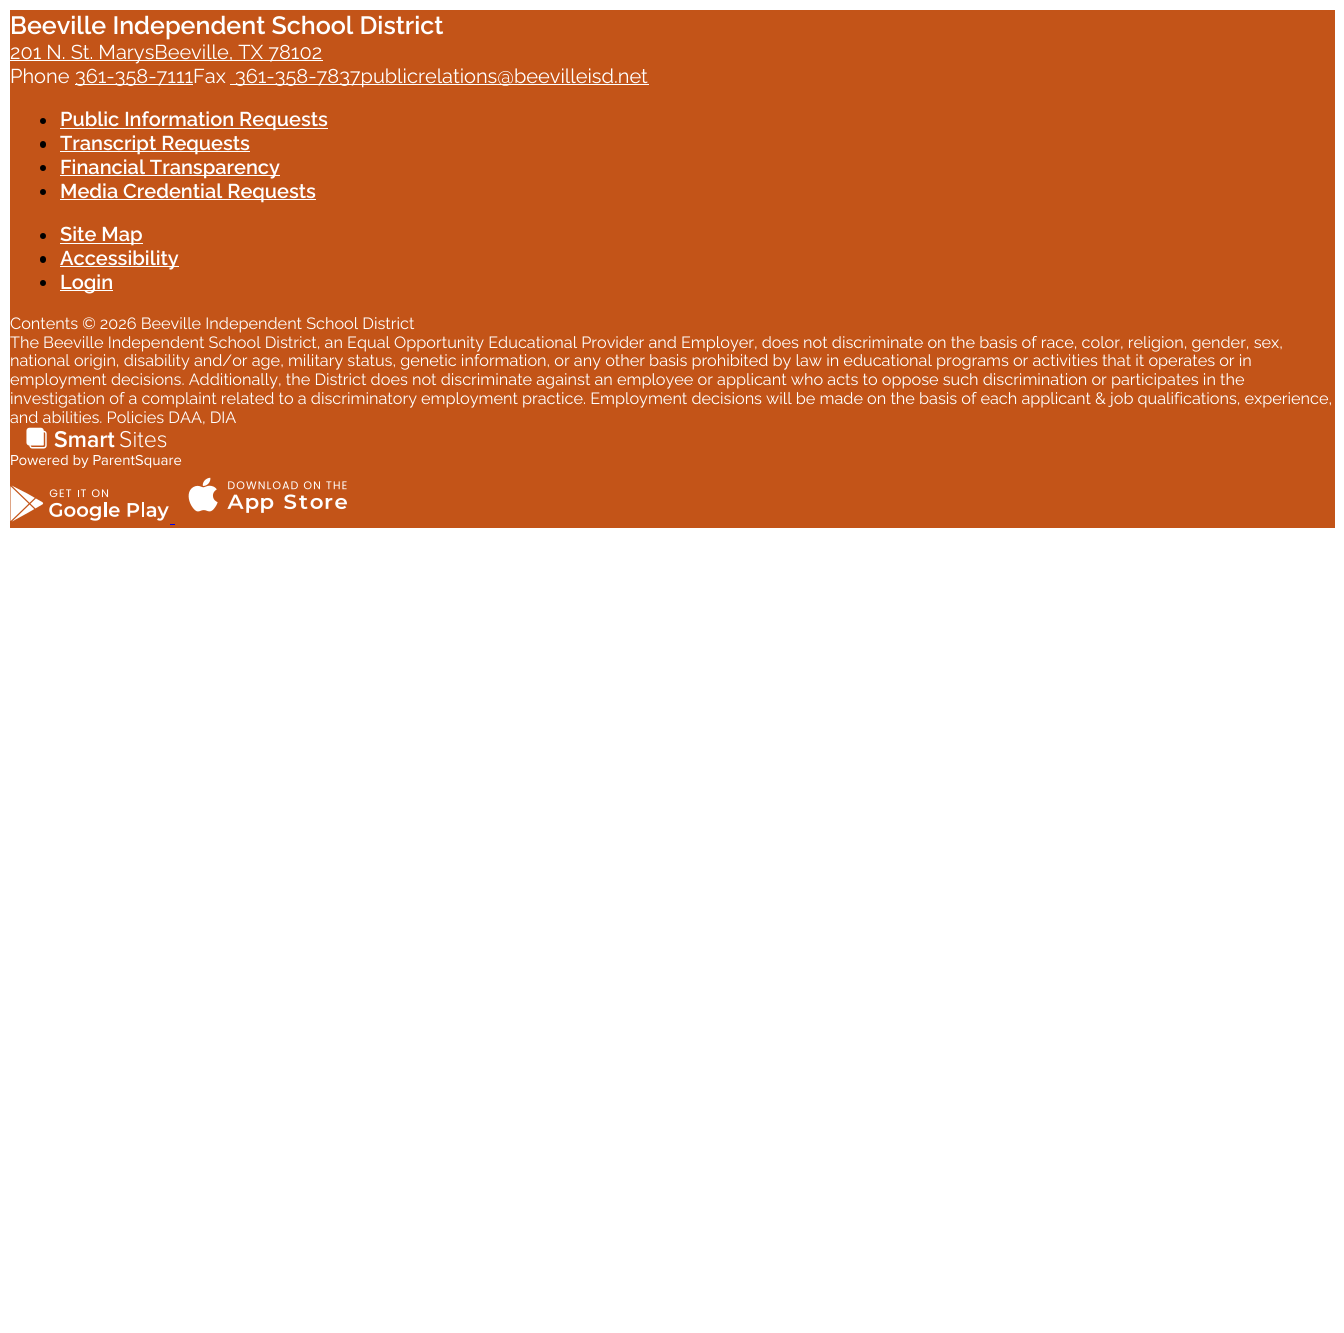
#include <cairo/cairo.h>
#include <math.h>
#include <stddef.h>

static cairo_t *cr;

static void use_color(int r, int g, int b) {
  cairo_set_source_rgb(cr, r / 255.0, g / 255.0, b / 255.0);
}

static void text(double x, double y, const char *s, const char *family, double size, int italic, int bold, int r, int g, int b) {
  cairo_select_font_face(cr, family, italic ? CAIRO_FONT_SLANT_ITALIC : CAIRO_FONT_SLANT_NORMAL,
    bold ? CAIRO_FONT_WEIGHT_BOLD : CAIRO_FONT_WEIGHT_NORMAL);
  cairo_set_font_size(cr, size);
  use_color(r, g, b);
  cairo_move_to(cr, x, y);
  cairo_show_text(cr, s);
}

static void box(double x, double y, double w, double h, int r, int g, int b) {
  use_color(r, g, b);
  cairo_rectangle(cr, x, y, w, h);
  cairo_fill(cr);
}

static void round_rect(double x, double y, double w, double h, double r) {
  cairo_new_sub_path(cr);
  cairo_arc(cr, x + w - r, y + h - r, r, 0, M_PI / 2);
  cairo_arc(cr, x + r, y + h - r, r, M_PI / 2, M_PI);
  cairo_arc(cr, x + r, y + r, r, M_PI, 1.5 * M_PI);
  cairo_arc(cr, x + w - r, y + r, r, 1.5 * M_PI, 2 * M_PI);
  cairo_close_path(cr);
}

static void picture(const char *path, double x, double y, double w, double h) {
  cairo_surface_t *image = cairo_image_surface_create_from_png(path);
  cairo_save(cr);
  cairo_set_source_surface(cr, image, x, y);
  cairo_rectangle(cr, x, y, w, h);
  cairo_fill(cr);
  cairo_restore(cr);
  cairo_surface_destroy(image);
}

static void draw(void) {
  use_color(255, 255, 255);
  cairo_paint(cr);
  box(10, 10, 1325, 518, 195, 84, 24);
  box(10, 60, 313, 1, 255, 255, 255);
  box(75, 84, 118, 1, 255, 255, 255);
  box(230, 84, 419, 1, 255, 255, 255);
  use_color(0, 0, 0);
  cairo_arc(cr, 43, 121, 3, 0, 2 * M_PI);
  cairo_fill(cr);
  box(60, 128, 268, 1, 255, 255, 255);
  use_color(0, 0, 0);
  round_rect(40, 141, 6, 7, 3);
  cairo_fill(cr);
  box(60, 151, 190, 1, 255, 255, 255);
  use_color(0, 0, 0);
  cairo_arc(cr, 43, 168, 3, 0, 2 * M_PI);
  cairo_fill(cr);
  box(60, 175, 220, 1, 255, 255, 255);
  use_color(0, 0, 0);
  cairo_arc(cr, 43, 192, 3, 0, 2 * M_PI);
  cairo_fill(cr);
  box(60, 199, 256, 1, 255, 255, 255);
  use_color(0, 0, 0);
  cairo_arc(cr, 43, 236, 3, 0, 2 * M_PI);
  cairo_fill(cr);
  box(60, 243, 83, 1, 255, 255, 255);
  use_color(0, 0, 0);
  round_rect(40, 256, 6, 7, 3);
  cairo_fill(cr);
  box(60, 266, 119, 1, 255, 255, 255);
  use_color(0, 0, 0);
  cairo_arc(cr, 43, 283, 3, 0, 2 * M_PI);
  cairo_fill(cr);
  box(60, 290, 53, 1, 255, 255, 255);
  picture("img_01.png", 11, 427, 171, 41);
  picture("img_02.png", 10, 485, 159, 37);
  picture("img_03.png", 188, 477, 159, 36);
  box(170, 524, 5, 1, 0, 0, 238);
  text(10, 34, "Beeville Independent School District", "Raleway SemiBold", 25, 0, 0, 255, 255, 255);
  text(10, 59, "201 N. St. MarysBeeville, TX 78102", "Raleway", 20, 0, 0, 255, 255, 255);
  text(10, 83, "Phone", "Raleway", 20, 0, 0, 255, 255, 255);
  text(75, 83, "361-358-7111Fax", "Raleway", 20, 0, 0, 255, 255, 255);
  text(235, 83, "361-358-7837publicrelations@beevilleisd.net", "Raleway", 20, 0, 0, 255, 255, 255);
  text(60, 126, "Public Information Requests", "Raleway SemiBold", 20, 0, 0, 255, 255, 255);
  text(60, 150, "Transcript Requests", "Raleway SemiBold", 20, 0, 0, 255, 255, 255);
  text(60, 174, "Financial Transparency", "Raleway SemiBold", 20, 0, 0, 255, 255, 255);
  text(60, 198, "Media Credential Requests", "Raleway SemiBold", 20, 0, 0, 255, 255, 255);
  text(60, 241, "Site Map", "Raleway SemiBold", 20, 0, 0, 255, 255, 255);
  text(60, 265, "Accessibility", "Raleway SemiBold", 20, 0, 0, 255, 255, 255);
  text(60, 289, "Login", "Raleway SemiBold", 20, 0, 0, 255, 255, 255);
  text(10, 329, "Contents © 2026 Beeville Independent School District", "Raleway", 16.25, 0, 0, 255, 255, 255);
  text(10, 348, "The Beeville Independent School District, an Equal Opportunity Educational Provider and Employer, does not discriminate on the basis of race, color, religion, gender, sex,", "Raleway", 16.25, 0, 0, 255, 255, 255);
  text(10, 366, "national origin, disability and/or age, military status, genetic information, or any other basis prohibited by law in educational programs or activities that it operates or in", "Raleway", 16.25, 0, 0, 255, 255, 255);
  text(10, 385, "employment decisions. Additionally, the District does not discriminate against an employee or applicant who acts to oppose such discrimination or participates in the", "Raleway", 16.25, 0, 0, 255, 255, 255);
  text(10, 404, "investigation of a complaint related to a discriminatory employment practice. Employment decisions will be made on the basis of each applicant & job qualifications, experience,", "Raleway", 16.25, 0, 0, 255, 255, 255);
  text(10, 423, "and abilities. Policies DAA, DIA", "Raleway", 16.25, 0, 0, 255, 255, 255);
}

int main(void) {
  cairo_surface_t *surface = cairo_image_surface_create(CAIRO_FORMAT_RGB24, 1344, 1333);
  cr = cairo_create(surface);
  cairo_font_options_t *options = cairo_font_options_create();
  cairo_font_options_set_hint_metrics(options, CAIRO_HINT_METRICS_OFF);
  cairo_font_options_set_hint_style(options, CAIRO_HINT_STYLE_NONE);
  cairo_set_font_options(cr, options);
  cairo_set_miter_limit(cr, 4);
  draw();
  cairo_surface_write_to_png(surface, "out.png");
  cairo_font_options_destroy(options);
  cairo_destroy(cr);
  cairo_surface_destroy(surface);
  return 0;
}
